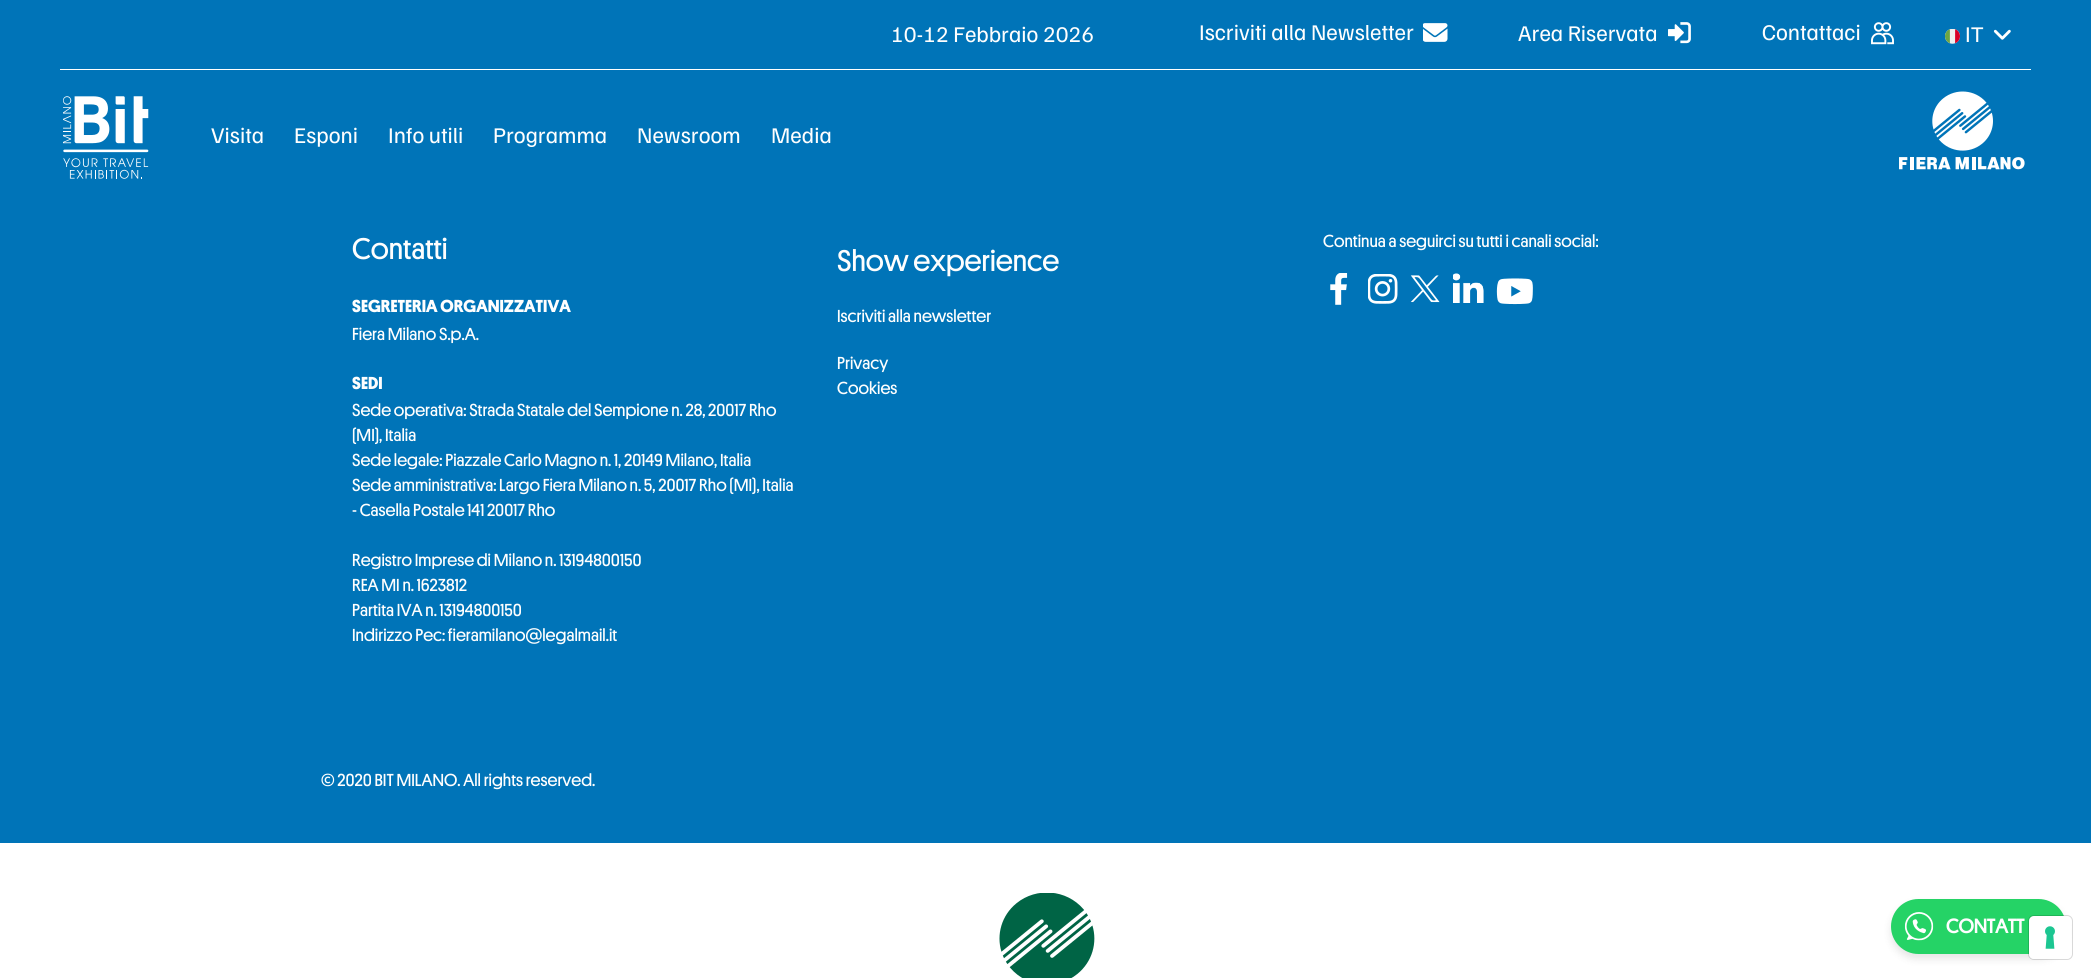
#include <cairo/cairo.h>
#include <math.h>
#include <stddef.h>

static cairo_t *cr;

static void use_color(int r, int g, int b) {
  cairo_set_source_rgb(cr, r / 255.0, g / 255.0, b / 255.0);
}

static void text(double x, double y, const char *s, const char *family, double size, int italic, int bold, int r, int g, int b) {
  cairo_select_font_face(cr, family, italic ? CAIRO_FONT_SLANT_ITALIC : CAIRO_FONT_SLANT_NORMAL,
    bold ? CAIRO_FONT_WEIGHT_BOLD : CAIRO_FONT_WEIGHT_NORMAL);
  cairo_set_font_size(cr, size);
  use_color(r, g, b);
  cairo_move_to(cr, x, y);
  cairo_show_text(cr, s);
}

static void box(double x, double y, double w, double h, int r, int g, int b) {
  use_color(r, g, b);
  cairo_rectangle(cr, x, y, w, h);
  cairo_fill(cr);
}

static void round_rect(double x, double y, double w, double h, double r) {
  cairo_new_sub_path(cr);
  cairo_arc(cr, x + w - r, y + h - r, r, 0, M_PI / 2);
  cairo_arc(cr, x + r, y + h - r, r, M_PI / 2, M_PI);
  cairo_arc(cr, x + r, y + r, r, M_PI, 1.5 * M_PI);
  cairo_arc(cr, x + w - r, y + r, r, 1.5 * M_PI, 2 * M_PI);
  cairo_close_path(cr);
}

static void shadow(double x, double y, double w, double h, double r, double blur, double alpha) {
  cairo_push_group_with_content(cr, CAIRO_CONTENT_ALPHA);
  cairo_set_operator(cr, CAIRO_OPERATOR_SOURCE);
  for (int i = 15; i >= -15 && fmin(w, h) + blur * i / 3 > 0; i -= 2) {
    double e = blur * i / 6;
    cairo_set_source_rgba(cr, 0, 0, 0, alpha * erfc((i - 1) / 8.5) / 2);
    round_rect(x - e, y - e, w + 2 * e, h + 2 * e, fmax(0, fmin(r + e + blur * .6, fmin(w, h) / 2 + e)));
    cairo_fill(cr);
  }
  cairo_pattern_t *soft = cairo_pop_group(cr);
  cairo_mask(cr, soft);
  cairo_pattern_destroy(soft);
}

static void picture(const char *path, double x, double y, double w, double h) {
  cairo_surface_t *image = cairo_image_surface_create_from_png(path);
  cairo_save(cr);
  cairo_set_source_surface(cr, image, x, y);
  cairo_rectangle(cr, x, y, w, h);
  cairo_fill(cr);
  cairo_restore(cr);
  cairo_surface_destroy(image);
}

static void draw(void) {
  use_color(255, 255, 255);
  cairo_paint(cr);
  box(0, 0, 2091, 843, 0, 116, 184);
  box(60, 69, 1971, 1, 255, 255, 255);
  picture("img_01.png", 1423, 23, 25, 19);
  picture("img_02.png", 1668, 22, 23, 22);
  picture("img_03.png", 1871, 22, 23, 23);
  picture("img_04.png", 1945, 29, 15, 15);
  picture("img_05.png", 1993, 29, 18, 11);
  picture("img_06.png", 63, 96, 86, 83);
  picture("img_07.png", 1899, 91, 126, 79);
  picture("img_08.png", 1330, 273, 18, 32);
  picture("img_09.png", 1368, 274, 30, 30);
  picture("img_10.png", 1410, 275, 30, 28);
  picture("img_11.png", 1453, 273, 31, 30);
  picture("img_12.png", 1496, 278, 37, 27);
  picture("img_13.png", 999, 893, 96, 85);
  use_color(0, 0, 0);
  shadow(1891, 904, 175, 55, 27.5, 4, 0.1);
  use_color(37, 211, 102);
  round_rect(1891, 899, 175, 55, 27.5);
  cairo_fill(cr);
  picture("img_14.png", 1904, 912, 30, 29);
  round_rect(2028.5, 915.5, 44, 44, 5.5);
  cairo_set_source_rgba(cr, 0, 0, 0, 0.15);
  cairo_set_line_width(cr, 1);
  cairo_stroke(cr);
  use_color(255, 255, 255);
  round_rect(2029, 916, 42, 43, 5);
  cairo_fill(cr);
  picture("img_15.png", 2045, 926, 10, 23);
  text(891, 42, "10-12 Febbraio 2026", "Familjen Grotesk", 22.5, 0, 0, 254, 254, 254);
  text(1199, 40, "Iscriviti alla Newsletter", "Familjen Grotesk", 22.5, 0, 0, 254, 254, 254);
  text(1518, 41, "Area Riservata", "Familjen Grotesk", 22.5, 0, 0, 254, 254, 254);
  text(1762, 40, "Contattaci", "Familjen Grotesk", 22.5, 0, 0, 254, 254, 254);
  text(1965, 42, "IT", "Familjen Grotesk", 22.5, 0, 0, 254, 254, 254);
  text(211, 143, "Visita", "Familjen Grotesk", 22.5, 0, 0, 254, 254, 254);
  text(294, 143, "Esponi", "Familjen Grotesk", 22.5, 0, 0, 254, 254, 254);
  text(388, 143, "Info utili", "Familjen Grotesk", 22.5, 0, 0, 254, 254, 254);
  text(493, 143, "Programma", "Familjen Grotesk", 22.5, 0, 0, 254, 254, 254);
  text(637, 143, "Newsroom", "Familjen Grotesk", 22.5, 0, 0, 254, 254, 254);
  text(771, 143, "Media", "Familjen Grotesk", 22.5, 0, 0, 254, 254, 254);
  text(352, 259, "Contatti", "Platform", 30, 0, 0, 254, 254, 254);
  text(352, 312, "SEGRETERIA ORGANIZZATIVA", "Platform", 17.5, 0, 1, 254, 254, 254);
  text(352, 340, "Fiera Milano S.p.A.", "Platform", 17.5, 0, 0, 254, 254, 254);
  text(352, 389, "SEDI", "Platform", 17.5, 0, 1, 254, 254, 254);
  text(352, 416, "Sede operativa: Strada Statale del Sempione n. 28, 20017 Rho", "Platform", 17.5, 0, 0, 254, 254, 254);
  text(352, 441, "(MI), Italia", "Platform", 17.5, 0, 0, 254, 254, 254);
  text(352, 466, "Sede legale: Piazzale Carlo Magno n. 1, 20149 Milano, Italia", "Platform", 17.5, 0, 0, 254, 254, 254);
  text(352, 491, "Sede amministrativa: Largo Fiera Milano n. 5, 20017 Rho (MI), Italia", "Platform", 17.5, 0, 0, 254, 254, 254);
  text(352, 516, "- Casella Postale 141 20017 Rho", "Platform", 17.5, 0, 0, 254, 254, 254);
  text(352, 566, "Registro Imprese di Milano n. 13194800150", "Platform", 17.5, 0, 0, 254, 254, 254);
  text(352, 591, "REA MI n. 1623812", "Platform", 17.5, 0, 0, 254, 254, 254);
  text(352, 616, "Partita IVA n. 13194800150", "Platform", 17.5, 0, 0, 254, 254, 254);
  text(352, 641, "Indirizzo Pec: fieramilano@legalmail.it", "Platform", 17.5, 0, 0, 254, 254, 254);
  text(837, 271, "Show experience", "Platform", 30, 0, 0, 254, 254, 254);
  text(837, 322, "Iscriviti alla newsletter", "Platform", 17.5, 0, 0, 254, 254, 254);
  text(837, 369, "Privacy", "Platform", 17.5, 0, 0, 254, 254, 254);
  text(837, 394, "Cookies", "Platform", 17.5, 0, 0, 254, 254, 254);
  text(1323, 247, "Continua a seguirci su tutti i canali social:", "Platform", 17.5, 0, 0, 254, 254, 254);
  text(321, 786, "© 2020 BIT MILANO. All rights reserved.", "Platform", 17.5, 0, 0, 254, 254, 254);
  text(1946, 933, "CONTATT", "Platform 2", 20, 0, 1, 254, 254, 254);
}

int main(void) {
  cairo_surface_t *surface = cairo_image_surface_create(CAIRO_FORMAT_RGB24, 2091, 978);
  cr = cairo_create(surface);
  cairo_font_options_t *options = cairo_font_options_create();
  cairo_font_options_set_hint_metrics(options, CAIRO_HINT_METRICS_OFF);
  cairo_font_options_set_hint_style(options, CAIRO_HINT_STYLE_NONE);
  cairo_set_font_options(cr, options);
  cairo_set_miter_limit(cr, 4);
  draw();
  cairo_surface_write_to_png(surface, "out.png");
  cairo_font_options_destroy(options);
  cairo_destroy(cr);
  cairo_surface_destroy(surface);
  return 0;
}
